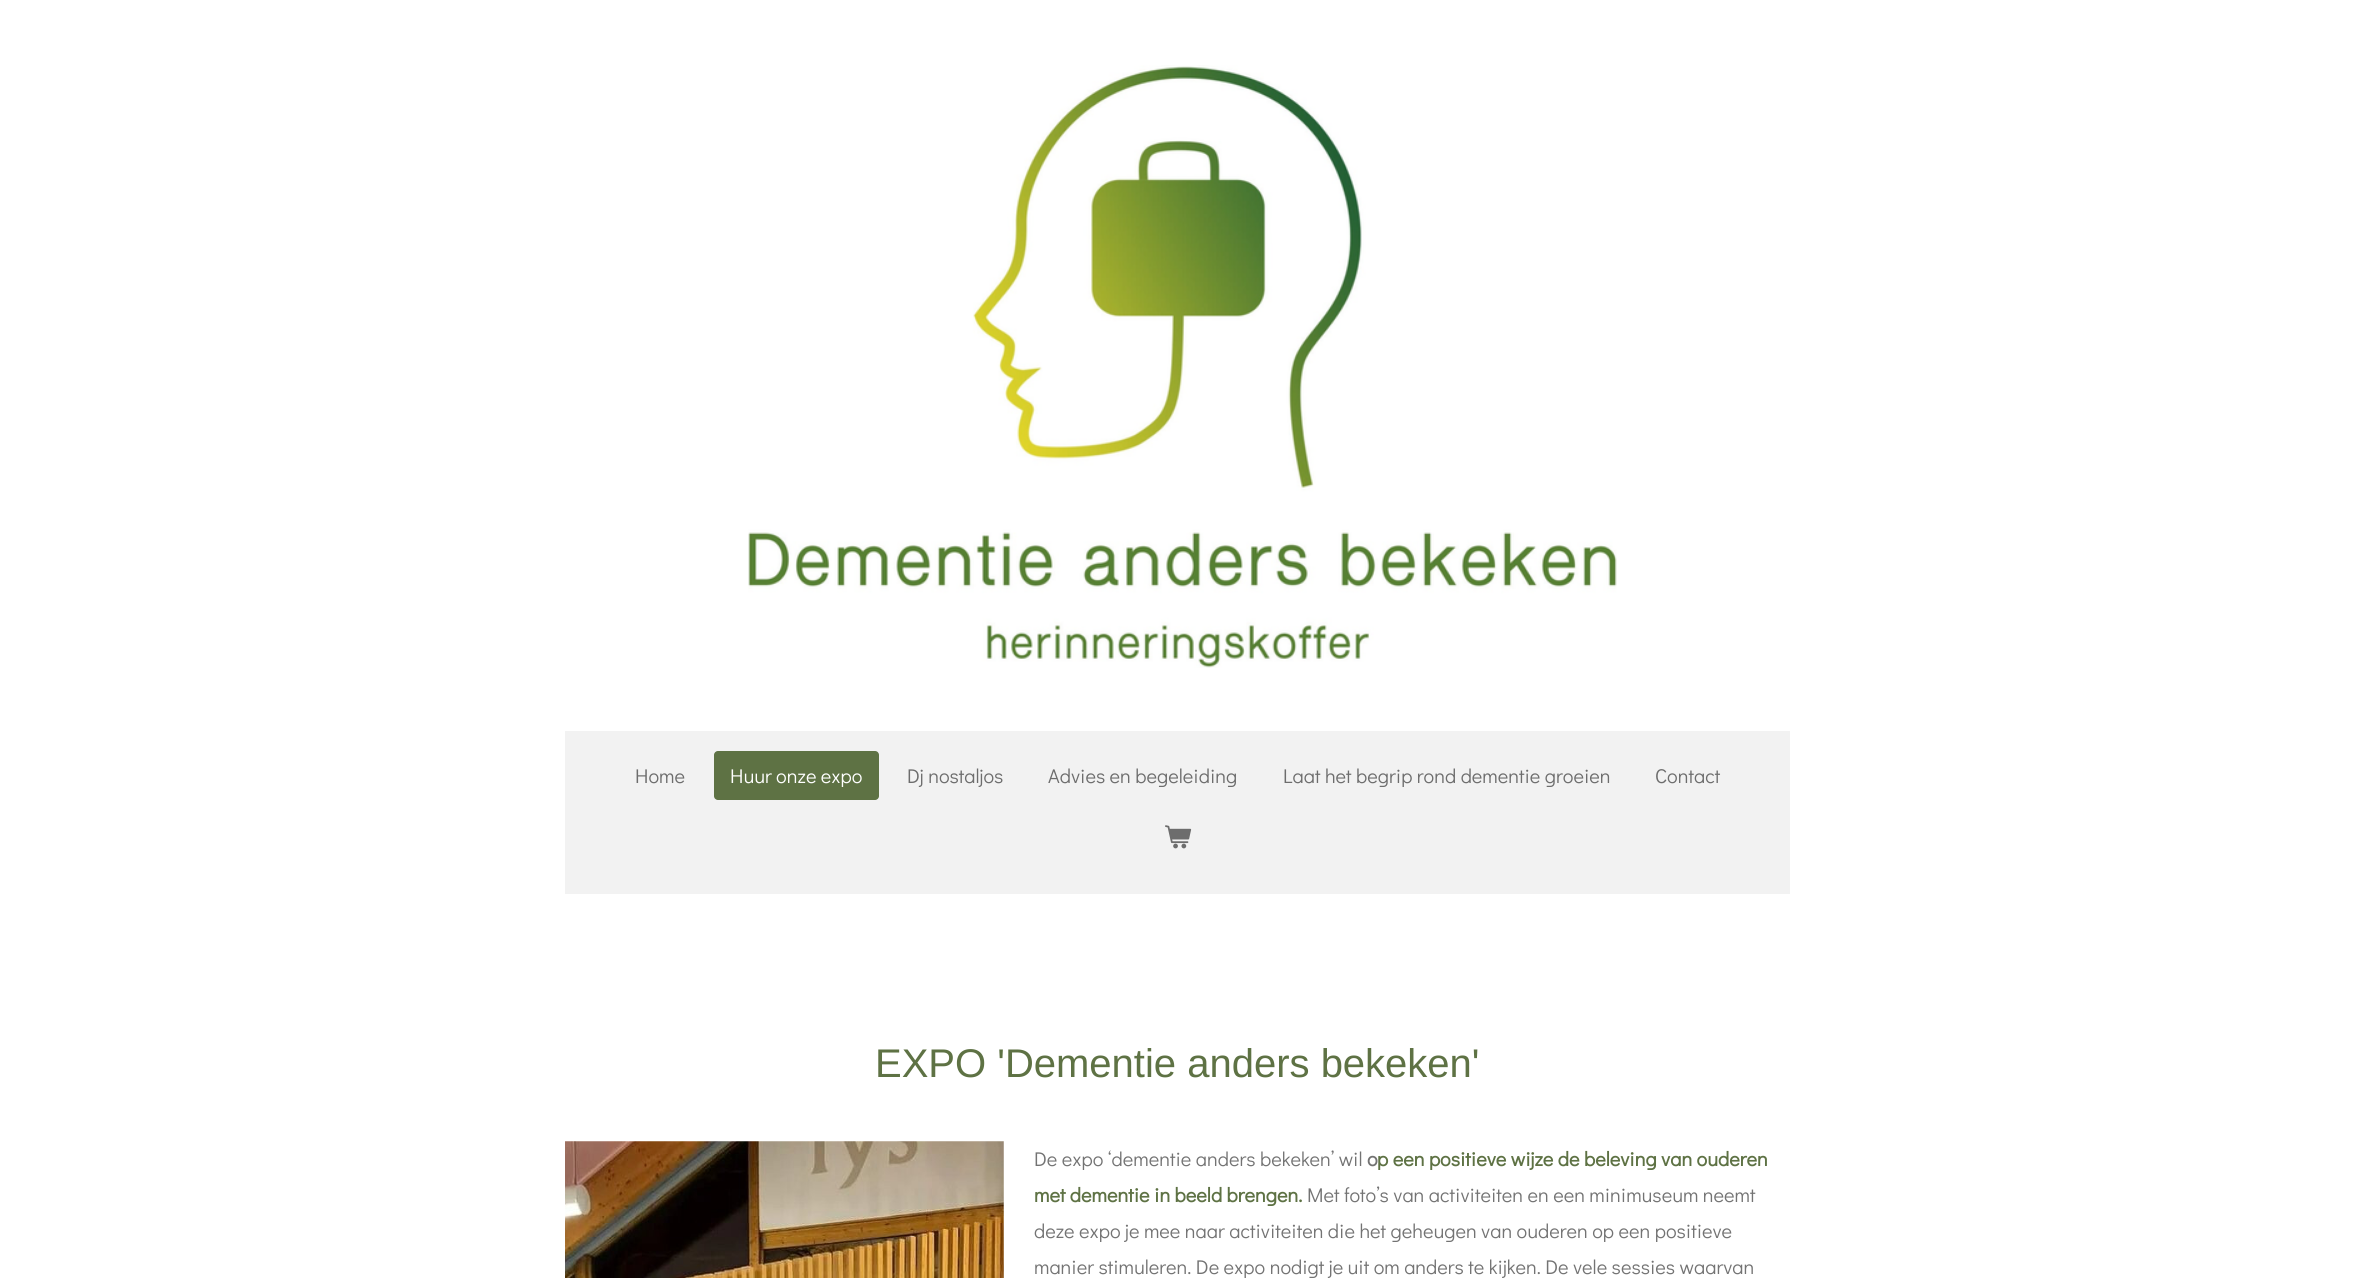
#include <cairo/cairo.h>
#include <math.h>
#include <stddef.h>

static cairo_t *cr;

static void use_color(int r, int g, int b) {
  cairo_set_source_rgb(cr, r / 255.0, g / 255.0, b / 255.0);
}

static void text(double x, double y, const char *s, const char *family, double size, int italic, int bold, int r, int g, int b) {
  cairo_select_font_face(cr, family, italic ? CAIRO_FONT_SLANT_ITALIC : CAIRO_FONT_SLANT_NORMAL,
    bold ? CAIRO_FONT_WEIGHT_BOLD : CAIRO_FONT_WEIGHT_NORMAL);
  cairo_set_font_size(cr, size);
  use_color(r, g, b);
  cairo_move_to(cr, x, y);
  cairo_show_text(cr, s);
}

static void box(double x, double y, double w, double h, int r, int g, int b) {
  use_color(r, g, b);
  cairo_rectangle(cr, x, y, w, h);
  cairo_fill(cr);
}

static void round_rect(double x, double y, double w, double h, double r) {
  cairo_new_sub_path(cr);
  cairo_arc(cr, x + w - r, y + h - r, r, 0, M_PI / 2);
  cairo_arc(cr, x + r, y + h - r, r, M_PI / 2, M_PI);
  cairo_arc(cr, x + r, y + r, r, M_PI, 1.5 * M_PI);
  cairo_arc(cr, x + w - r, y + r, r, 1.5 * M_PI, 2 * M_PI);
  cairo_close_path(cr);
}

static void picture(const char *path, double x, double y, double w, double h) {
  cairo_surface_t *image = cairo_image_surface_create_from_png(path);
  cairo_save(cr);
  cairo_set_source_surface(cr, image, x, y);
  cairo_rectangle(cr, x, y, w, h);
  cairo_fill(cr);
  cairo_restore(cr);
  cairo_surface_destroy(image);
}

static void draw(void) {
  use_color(255, 255, 255);
  cairo_paint(cr);
  picture("img_01.png", 748, 65, 869, 603);
  box(565, 731, 1225, 163, 242, 242, 242);
  use_color(94, 114, 68);
  round_rect(714, 751, 165, 49, 4);
  cairo_fill(cr);
  picture("img_02.png", 1165, 825, 27, 24);
  picture("img_03.png", 565, 1141, 439, 137);
  text(635, 783, "Home", "Didact Gothic", 20, 0, 0, 109, 109, 109);
  text(730, 783, "Huur onze expo", "Didact Gothic", 20, 0, 0, 255, 255, 255);
  text(907, 783, "Dj nostaljos", "Didact Gothic", 20, 0, 0, 109, 109, 109);
  text(1048, 783, "Advies en begeleiding", "Didact Gothic", 20, 0, 0, 109, 109, 109);
  text(1283, 783, "Laat het begrip rond dementie groeien", "Didact Gothic", 20, 0, 0, 109, 109, 109);
  text(1655, 783, "Contact", "Didact Gothic", 20, 0, 0, 109, 109, 109);
  text(875, 1077, "EXPO 'Dementie anders bekeken'", "Arimo", 40, 0, 0, 94, 114, 68);
  text(1034, 1166, "De expo ‘dementie anders bekeken’ wil", "Didact Gothic", 20, 0, 0, 115, 115, 115);
  text(1367, 1166, "o", "Didact Gothic", 20, 0, 1, 115, 115, 115);
  text(1377, 1166, "p een positieve wijze de beleving van ouderen", "Didact Gothic", 20, 0, 1, 94, 114, 68);
  text(1034, 1202, "met dementie in beeld brengen.", "Didact Gothic", 20, 0, 1, 94, 114, 68);
  text(1307, 1202, "Met foto’s van activiteiten en een minimuseum neemt", "Didact Gothic", 20, 0, 0, 115, 115, 115);
  text(1034, 1238, "deze expo je mee naar activiteiten die het geheugen van ouderen op een positieve", "Didact Gothic", 20, 0, 0, 115, 115, 115);
  text(1034, 1274, "manier stimuleren. De expo nodigt je uit om anders te kijken. De vele sessies waarvan", "Didact Gothic", 20, 0, 0, 115, 115, 115);
}

int main(void) {
  cairo_surface_t *surface = cairo_image_surface_create(CAIRO_FORMAT_RGB24, 2354, 1278);
  cr = cairo_create(surface);
  cairo_font_options_t *options = cairo_font_options_create();
  cairo_font_options_set_hint_metrics(options, CAIRO_HINT_METRICS_OFF);
  cairo_font_options_set_hint_style(options, CAIRO_HINT_STYLE_NONE);
  cairo_set_font_options(cr, options);
  cairo_set_miter_limit(cr, 4);
  draw();
  cairo_surface_write_to_png(surface, "out.png");
  cairo_font_options_destroy(options);
  cairo_destroy(cr);
  cairo_surface_destroy(surface);
  return 0;
}
